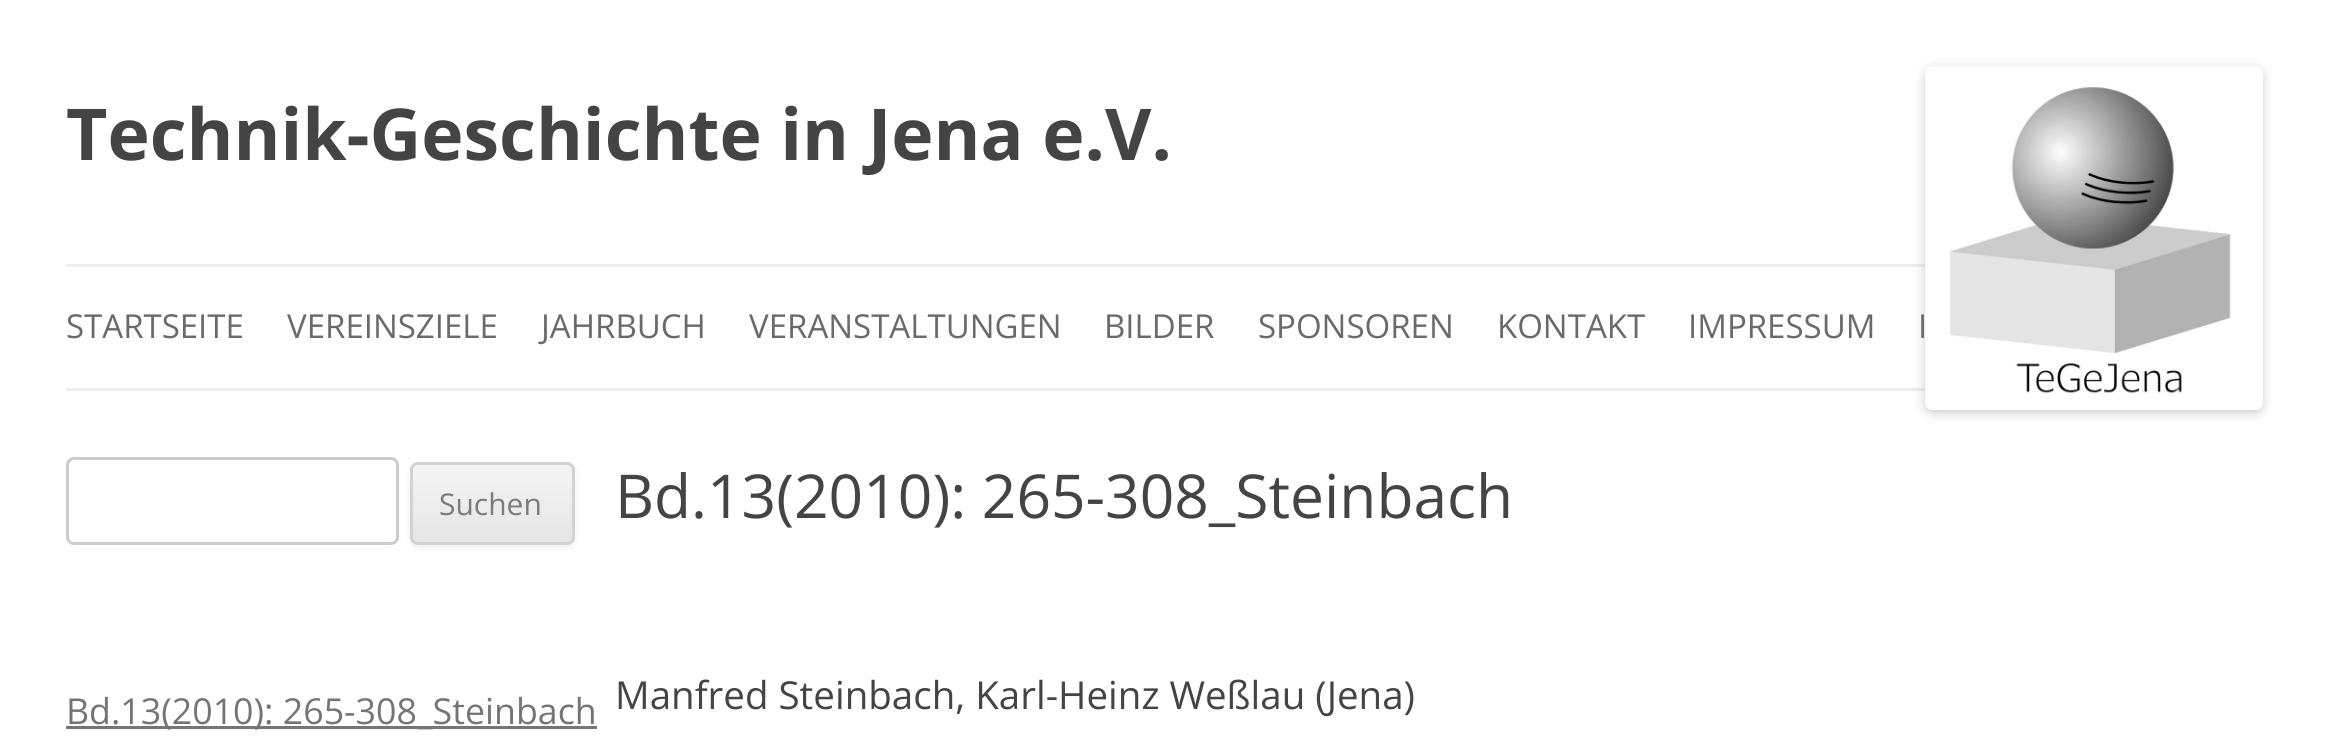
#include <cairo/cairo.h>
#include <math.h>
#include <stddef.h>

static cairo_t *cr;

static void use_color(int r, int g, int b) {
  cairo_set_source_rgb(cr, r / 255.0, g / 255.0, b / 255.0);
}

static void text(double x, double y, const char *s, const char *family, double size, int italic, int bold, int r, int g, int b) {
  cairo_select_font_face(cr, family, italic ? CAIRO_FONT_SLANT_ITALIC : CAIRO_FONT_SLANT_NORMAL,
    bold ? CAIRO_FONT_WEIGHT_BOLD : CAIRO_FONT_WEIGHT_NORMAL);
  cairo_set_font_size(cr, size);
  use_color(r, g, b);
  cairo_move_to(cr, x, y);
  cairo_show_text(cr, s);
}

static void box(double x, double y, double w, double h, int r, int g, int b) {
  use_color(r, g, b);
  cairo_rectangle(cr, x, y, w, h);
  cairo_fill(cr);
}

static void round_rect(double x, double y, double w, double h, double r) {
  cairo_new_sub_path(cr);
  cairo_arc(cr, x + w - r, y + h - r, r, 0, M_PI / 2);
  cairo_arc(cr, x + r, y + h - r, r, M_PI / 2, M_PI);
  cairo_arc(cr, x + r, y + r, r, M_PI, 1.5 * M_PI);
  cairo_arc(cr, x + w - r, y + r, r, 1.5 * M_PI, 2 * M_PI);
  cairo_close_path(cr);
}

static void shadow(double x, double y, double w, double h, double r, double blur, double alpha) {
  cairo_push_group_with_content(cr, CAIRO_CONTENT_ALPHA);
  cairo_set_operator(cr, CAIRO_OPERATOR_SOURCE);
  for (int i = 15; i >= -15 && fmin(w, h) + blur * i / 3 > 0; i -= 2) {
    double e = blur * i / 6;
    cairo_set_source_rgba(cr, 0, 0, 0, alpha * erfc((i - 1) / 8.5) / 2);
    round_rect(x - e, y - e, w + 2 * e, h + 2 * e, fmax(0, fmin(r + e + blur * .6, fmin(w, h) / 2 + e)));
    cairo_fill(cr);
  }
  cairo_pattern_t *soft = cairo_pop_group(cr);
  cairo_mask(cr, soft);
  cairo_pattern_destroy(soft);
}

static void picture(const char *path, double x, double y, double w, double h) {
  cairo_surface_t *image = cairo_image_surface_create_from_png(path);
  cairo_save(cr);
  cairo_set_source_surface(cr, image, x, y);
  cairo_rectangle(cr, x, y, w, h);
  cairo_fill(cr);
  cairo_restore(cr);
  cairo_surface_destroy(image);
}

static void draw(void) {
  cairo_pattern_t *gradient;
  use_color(255, 255, 255);
  cairo_paint(cr);
  box(66, 264, 1859, 3, 237, 237, 237);
  box(66, 388, 1859, 3, 237, 237, 237);
  cairo_save(cr);
  cairo_set_fill_rule(cr, CAIRO_FILL_RULE_EVEN_ODD);
  cairo_new_path(cr);
  cairo_move_to(cr, 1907, 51);
  cairo_line_to(cr, 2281, 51);
  cairo_line_to(cr, 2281, 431);
  cairo_line_to(cr, 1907, 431);
  cairo_close_path(cr);
  cairo_move_to(cr, 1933, 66);
  cairo_line_to(cr, 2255, 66);
  cairo_curve_to(cr, 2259.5, 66, 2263, 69.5, 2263, 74);
  cairo_line_to(cr, 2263, 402);
  cairo_curve_to(cr, 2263, 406.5, 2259.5, 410, 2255, 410);
  cairo_line_to(cr, 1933, 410);
  cairo_curve_to(cr, 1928.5, 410, 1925, 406.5, 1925, 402);
  cairo_line_to(cr, 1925, 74);
  cairo_curve_to(cr, 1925, 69.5, 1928.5, 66, 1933, 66);
  cairo_close_path(cr);
  cairo_clip(cr);
  use_color(0, 0, 0);
  shadow(1925, 69, 338, 344, 8, 5.5, 0.2);
  cairo_restore(cr);
  picture("img_01.png", 1925, 87, 338, 323);
  round_rect(67.5, 458.5, 330, 85, 6.5);
  use_color(204, 204, 204);
  cairo_set_line_width(cr, 3);
  cairo_stroke(cr);
  use_color(64, 64, 64);
  shadow(410, 465, 165, 82, 8, 3, 0.1);
  cairo_save(cr);
  round_rect(410, 462, 165, 83, 8);
  cairo_clip(cr);
  gradient = cairo_pattern_create_linear(492, 465, 492, 542);
  cairo_pattern_add_color_stop_rgba(gradient, 0, 0.957, 0.957, 0.957, 1);
  cairo_pattern_add_color_stop_rgba(gradient, 1, 0.902, 0.902, 0.902, 1);
  cairo_set_source(cr, gradient);
  cairo_pattern_destroy(gradient);
  cairo_rectangle(cr, 410, 465, 165, 77);
  cairo_fill(cr);
  cairo_restore(cr);
  round_rect(411.5, 463.5, 162, 80, 6.5);
  use_color(210, 210, 210);
  cairo_stroke(cr);
  box(66, 726, 531, 3, 117, 117, 117);
  text(66, 160, "Technik-Geschichte in Jena e.V.", "Open Sans", 71.5, 0, 1, 68, 68, 68);
  text(66, 338, "STARTSEITE", "Open Sans", 33, 0, 0, 106, 106, 106);
  text(287, 338, "VEREINSZIELE", "Open Sans", 33, 0, 0, 106, 106, 106);
  text(541, 338, "JAHRBUCH", "Open Sans", 33, 0, 0, 106, 106, 106);
  text(749, 338, "VERANSTALTUNGEN", "Open Sans", 33, 0, 0, 106, 106, 106);
  text(1104, 338, "BILDER", "Open Sans", 33, 0, 0, 106, 106, 106);
  text(1258, 338, "SPONSOREN", "Open Sans", 33, 0, 0, 106, 106, 106);
  text(1497, 338, "KONTAKT", "Open Sans", 33, 0, 0, 106, 106, 106);
  text(1688, 338, "IMPRESSUM", "Open Sans", 33, 0, 0, 106, 106, 106);
  text(1918, 338, "I", "Open Sans", 33, 0, 0, 106, 106, 106);
  text(439, 515, "Suchen", "Open Sans", 30, 0, 0, 124, 124, 124);
  text(66, 724, "Bd.13(2010): 265-308_Steinbach", "Open Sans", 35.75, 0, 0, 117, 117, 117);
  text(615, 518, "Bd.13(2010): 265-308_Steinbach", "Open Sans", 60.5, 0, 0, 68, 68, 68);
  text(615, 709, "Manfred Steinbach, Karl-Heinz Weßlau (Jena)", "Open Sans", 38.5, 0, 0, 68, 68, 68);
}

int main(void) {
  cairo_surface_t *surface = cairo_image_surface_create(CAIRO_FORMAT_RGB24, 2327, 746);
  cr = cairo_create(surface);
  cairo_font_options_t *options = cairo_font_options_create();
  cairo_font_options_set_hint_metrics(options, CAIRO_HINT_METRICS_OFF);
  cairo_font_options_set_hint_style(options, CAIRO_HINT_STYLE_NONE);
  cairo_set_font_options(cr, options);
  cairo_set_miter_limit(cr, 4);
  draw();
  cairo_surface_write_to_png(surface, "out.png");
  cairo_font_options_destroy(options);
  cairo_destroy(cr);
  cairo_surface_destroy(surface);
  return 0;
}
